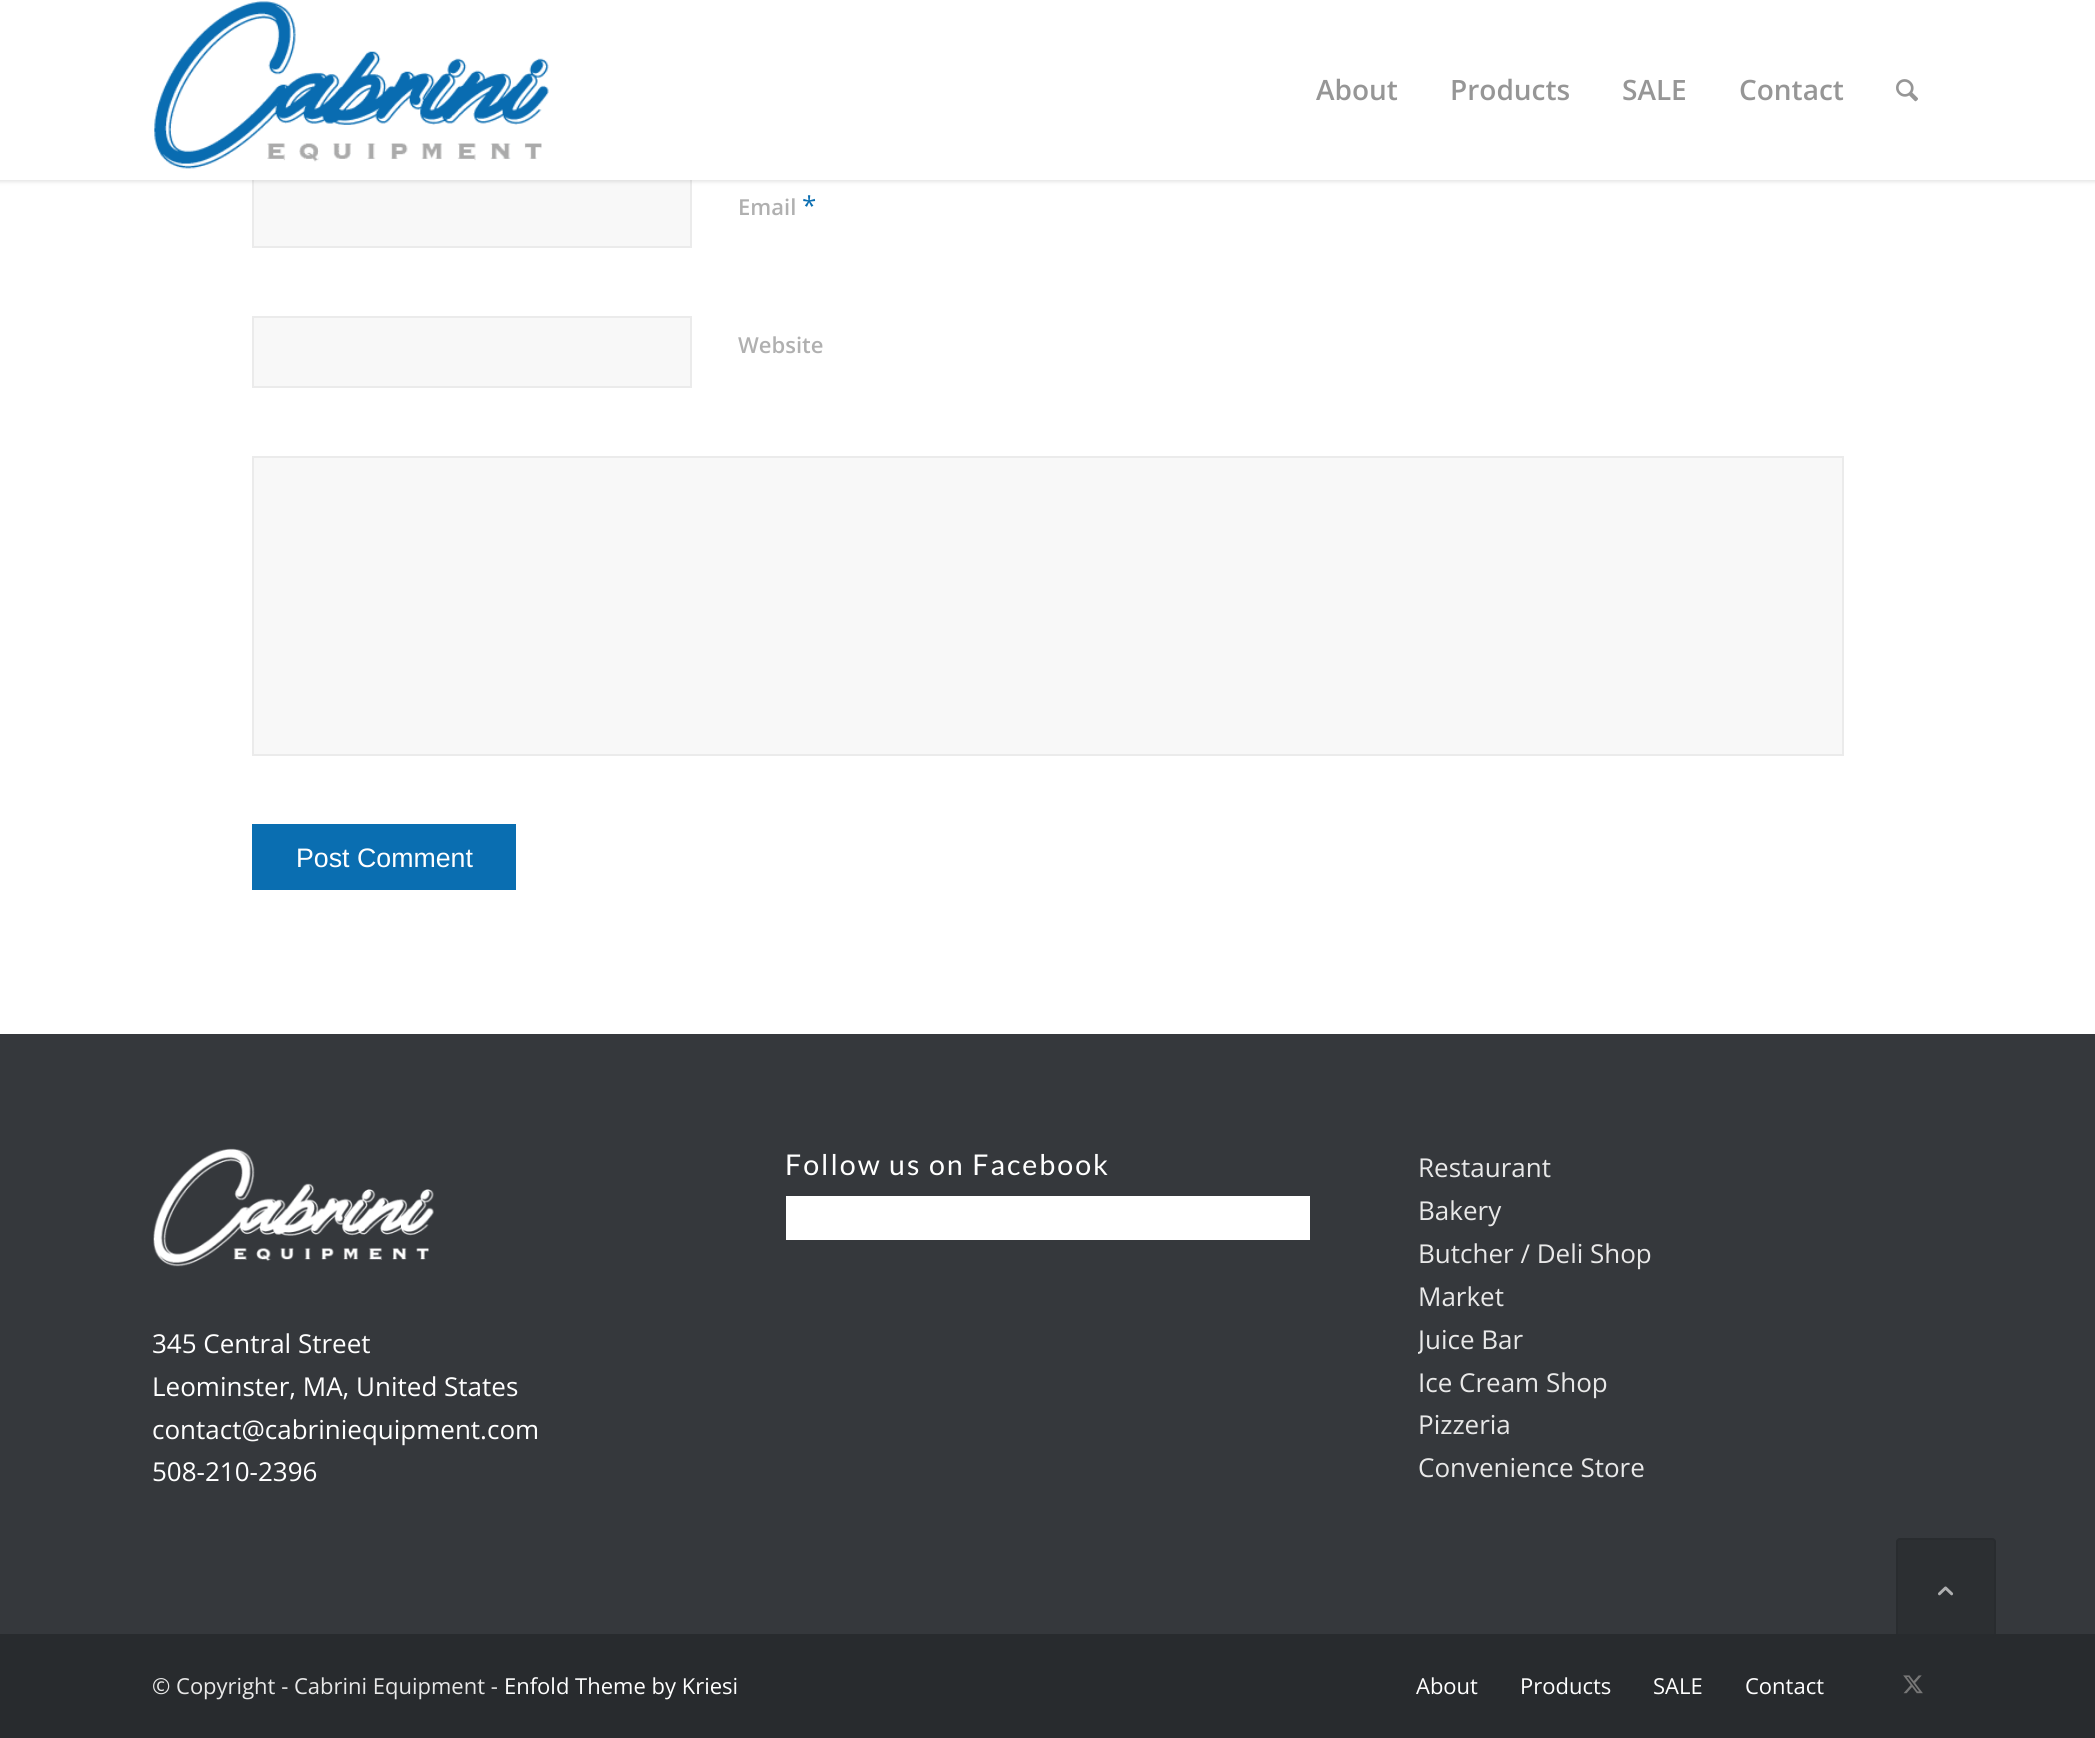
#include <cairo/cairo.h>
#include <math.h>
#include <stddef.h>

static cairo_t *cr;

static void use_color(int r, int g, int b) {
  cairo_set_source_rgb(cr, r / 255.0, g / 255.0, b / 255.0);
}

static void text(double x, double y, const char *s, const char *family, double size, int italic, int bold, int r, int g, int b) {
  cairo_select_font_face(cr, family, italic ? CAIRO_FONT_SLANT_ITALIC : CAIRO_FONT_SLANT_NORMAL,
    bold ? CAIRO_FONT_WEIGHT_BOLD : CAIRO_FONT_WEIGHT_NORMAL);
  cairo_set_font_size(cr, size);
  use_color(r, g, b);
  cairo_move_to(cr, x, y);
  cairo_show_text(cr, s);
}

static void spaced_text(double x, double y, const char *s, double letter, double word) {
  cairo_move_to(cr, x, y);
  while (*s) {
    char ch[5] = {0};
    int n = 0;
    do ch[n++] = *s++; while ((*s & 0xC0) == 0x80);
    cairo_show_text(cr, ch);
    cairo_rel_move_to(cr, letter + word * (*ch == ' '), 0);
  }
}

static void box(double x, double y, double w, double h, int r, int g, int b) {
  use_color(r, g, b);
  cairo_rectangle(cr, x, y, w, h);
  cairo_fill(cr);
}

static void round_rect(double x, double y, double w, double h, double r) {
  cairo_new_sub_path(cr);
  cairo_arc(cr, x + w - r, y + h - r, r, 0, M_PI / 2);
  cairo_arc(cr, x + r, y + h - r, r, M_PI / 2, M_PI);
  cairo_arc(cr, x + r, y + r, r, M_PI, 1.5 * M_PI);
  cairo_arc(cr, x + w - r, y + r, r, 1.5 * M_PI, 2 * M_PI);
  cairo_close_path(cr);
}

static void shadow(double x, double y, double w, double h, double r, double blur, double alpha) {
  cairo_push_group_with_content(cr, CAIRO_CONTENT_ALPHA);
  cairo_set_operator(cr, CAIRO_OPERATOR_SOURCE);
  for (int i = 15; i >= -15 && fmin(w, h) + blur * i / 3 > 0; i -= 2) {
    double e = blur * i / 6;
    cairo_set_source_rgba(cr, 0, 0, 0, alpha * erfc((i - 1) / 8.5) / 2);
    round_rect(x - e, y - e, w + 2 * e, h + 2 * e, fmax(0, fmin(r + e + blur * .6, fmin(w, h) / 2 + e)));
    cairo_fill(cr);
  }
  cairo_pattern_t *soft = cairo_pop_group(cr);
  cairo_mask(cr, soft);
  cairo_pattern_destroy(soft);
}

static void picture(const char *path, double x, double y, double w, double h) {
  cairo_surface_t *image = cairo_image_surface_create_from_png(path);
  cairo_save(cr);
  cairo_set_source_surface(cr, image, x, y);
  cairo_rectangle(cr, x, y, w, h);
  cairo_fill(cr);
  cairo_restore(cr);
  cairo_surface_destroy(image);
}

static void draw(void) {
  use_color(255, 255, 255);
  cairo_paint(cr);
  box(254, 180, 436, 66, 248, 248, 248);
  cairo_rectangle(cr, 253, 177, 438, 70);
  use_color(235, 235, 235);
  cairo_stroke(cr);
  use_color(0, 0, 0);
  shadow(-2, -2, 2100, 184, 0, 2, 0.1);
  box(0, 0, 2095, 180, 255, 255, 255);
  picture("img_01.png", 154, 1, 395, 168);
  picture("img_02.png", 1896, 79, 22, 23);
  use_color(248, 248, 248);
  cairo_rectangle(cr, 253, 317, 438, 70);
  cairo_fill_preserve(cr);
  use_color(235, 235, 235);
  cairo_stroke(cr);
  use_color(248, 248, 248);
  cairo_rectangle(cr, 253, 457, 1590, 298);
  cairo_fill_preserve(cr);
  use_color(235, 235, 235);
  cairo_stroke(cr);
  box(252, 824, 264, 66, 10, 110, 177);
  box(0, 1034, 2095, 600, 53, 56, 60);
  picture("img_03.png", 153, 1148, 281, 119);
  box(786, 1196, 524, 44, 255, 255, 255);
  box(0, 1634, 2095, 104, 40, 43, 46);
  picture("img_04.png", 1903, 1675, 20, 19);
  cairo_set_source_rgba(cr, 0.157, 0.169, 0.18, 0.7);
  round_rect(1896, 1538, 100, 100, 4);
  cairo_fill(cr);
  round_rect(1897, 1539, 98, 98, 3);
  cairo_stroke(cr);
  picture("img_05.png", 1938, 1586, 16, 10);
  text(1316, 100, "About", "Open Sans SemiBold", 28, 0, 0, 150, 150, 150);
  text(1450, 100, "Products", "Open Sans SemiBold", 28, 0, 0, 150, 150, 150);
  text(1622, 100, "SALE", "Open Sans SemiBold", 28, 0, 0, 150, 150, 150);
  text(1739, 100, "Contact", "Open Sans SemiBold", 28, 0, 0, 150, 150, 150);
  text(738, 215, "Email", "Open Sans SemiBold", 22, 0, 0, 176, 176, 176);
  text(802, 215, "*", "Open Sans", 26, 0, 0, 10, 110, 177);
  text(738, 353, "Website", "Open Sans SemiBold", 22, 0, 0, 176, 176, 176);
  text(296, 867, "Post Comment", "Liberation Sans", 26.75, 0, 0, 255, 255, 255);
  text(152, 1353, "345 Central Street", "Open Sans", 26, 0, 0, 255, 255, 255);
  text(152, 1396, "Leominster, MA, United States", "Open Sans", 26, 0, 0, 255, 255, 255);
  text(152, 1439, "contact@cabriniequipment.com", "Open Sans", 26, 0, 0, 255, 255, 255);
  text(152, 1481, "508-210-2396", "Open Sans", 26, 0, 0, 255, 255, 255);
  cairo_select_font_face(cr, "Lato", CAIRO_FONT_SLANT_NORMAL, CAIRO_FONT_WEIGHT_NORMAL);
  cairo_set_font_size(cr, 28.6);
  spaced_text(785, 1175, "Follow us on Facebook", 2, 0);
  text(1418, 1177, "Restaurant", "Open Sans", 26, 0, 0, 232, 232, 232);
  text(1418, 1220, "Bakery", "Open Sans", 26, 0, 0, 232, 232, 232);
  text(1418, 1263, "Butcher / Deli Shop", "Open Sans", 26, 0, 0, 232, 232, 232);
  text(1418, 1306, "Market", "Open Sans", 26, 0, 0, 232, 232, 232);
  cairo_save(cr);
  cairo_rectangle(cr, 1418, 1124, 526, 388);
  cairo_clip(cr);
  text(1418, 1349, "Juice Bar", "Open Sans", 26, 0, 0, 232, 232, 232);
  cairo_restore(cr);
  text(1418, 1392, "Ice Cream Shop", "Open Sans", 26, 0, 0, 232, 232, 232);
  text(1418, 1434, "Pizzeria", "Open Sans", 26, 0, 0, 232, 232, 232);
  text(1418, 1477, "Convenience Store", "Open Sans", 26, 0, 0, 232, 232, 232);
  text(152, 1694, "© Copyright - Cabrini Equipment -", "Open Sans", 22, 0, 0, 232, 232, 232);
  text(504, 1694, "Enfold Theme by Kriesi", "Open Sans", 22, 0, 0, 255, 255, 255);
  text(1416, 1694, "About", "Open Sans", 22, 0, 0, 255, 255, 255);
  text(1520, 1694, "Products", "Open Sans", 22, 0, 0, 255, 255, 255);
  text(1653, 1694, "SALE", "Open Sans", 22, 0, 0, 255, 255, 255);
  text(1745, 1694, "Contact", "Open Sans", 22, 0, 0, 255, 255, 255);
}

int main(void) {
  cairo_surface_t *surface = cairo_image_surface_create(CAIRO_FORMAT_RGB24, 2095, 1738);
  cr = cairo_create(surface);
  cairo_font_options_t *options = cairo_font_options_create();
  cairo_font_options_set_hint_metrics(options, CAIRO_HINT_METRICS_OFF);
  cairo_font_options_set_hint_style(options, CAIRO_HINT_STYLE_NONE);
  cairo_set_font_options(cr, options);
  cairo_set_miter_limit(cr, 4);
  draw();
  cairo_surface_write_to_png(surface, "out.png");
  cairo_font_options_destroy(options);
  cairo_destroy(cr);
  cairo_surface_destroy(surface);
  return 0;
}
